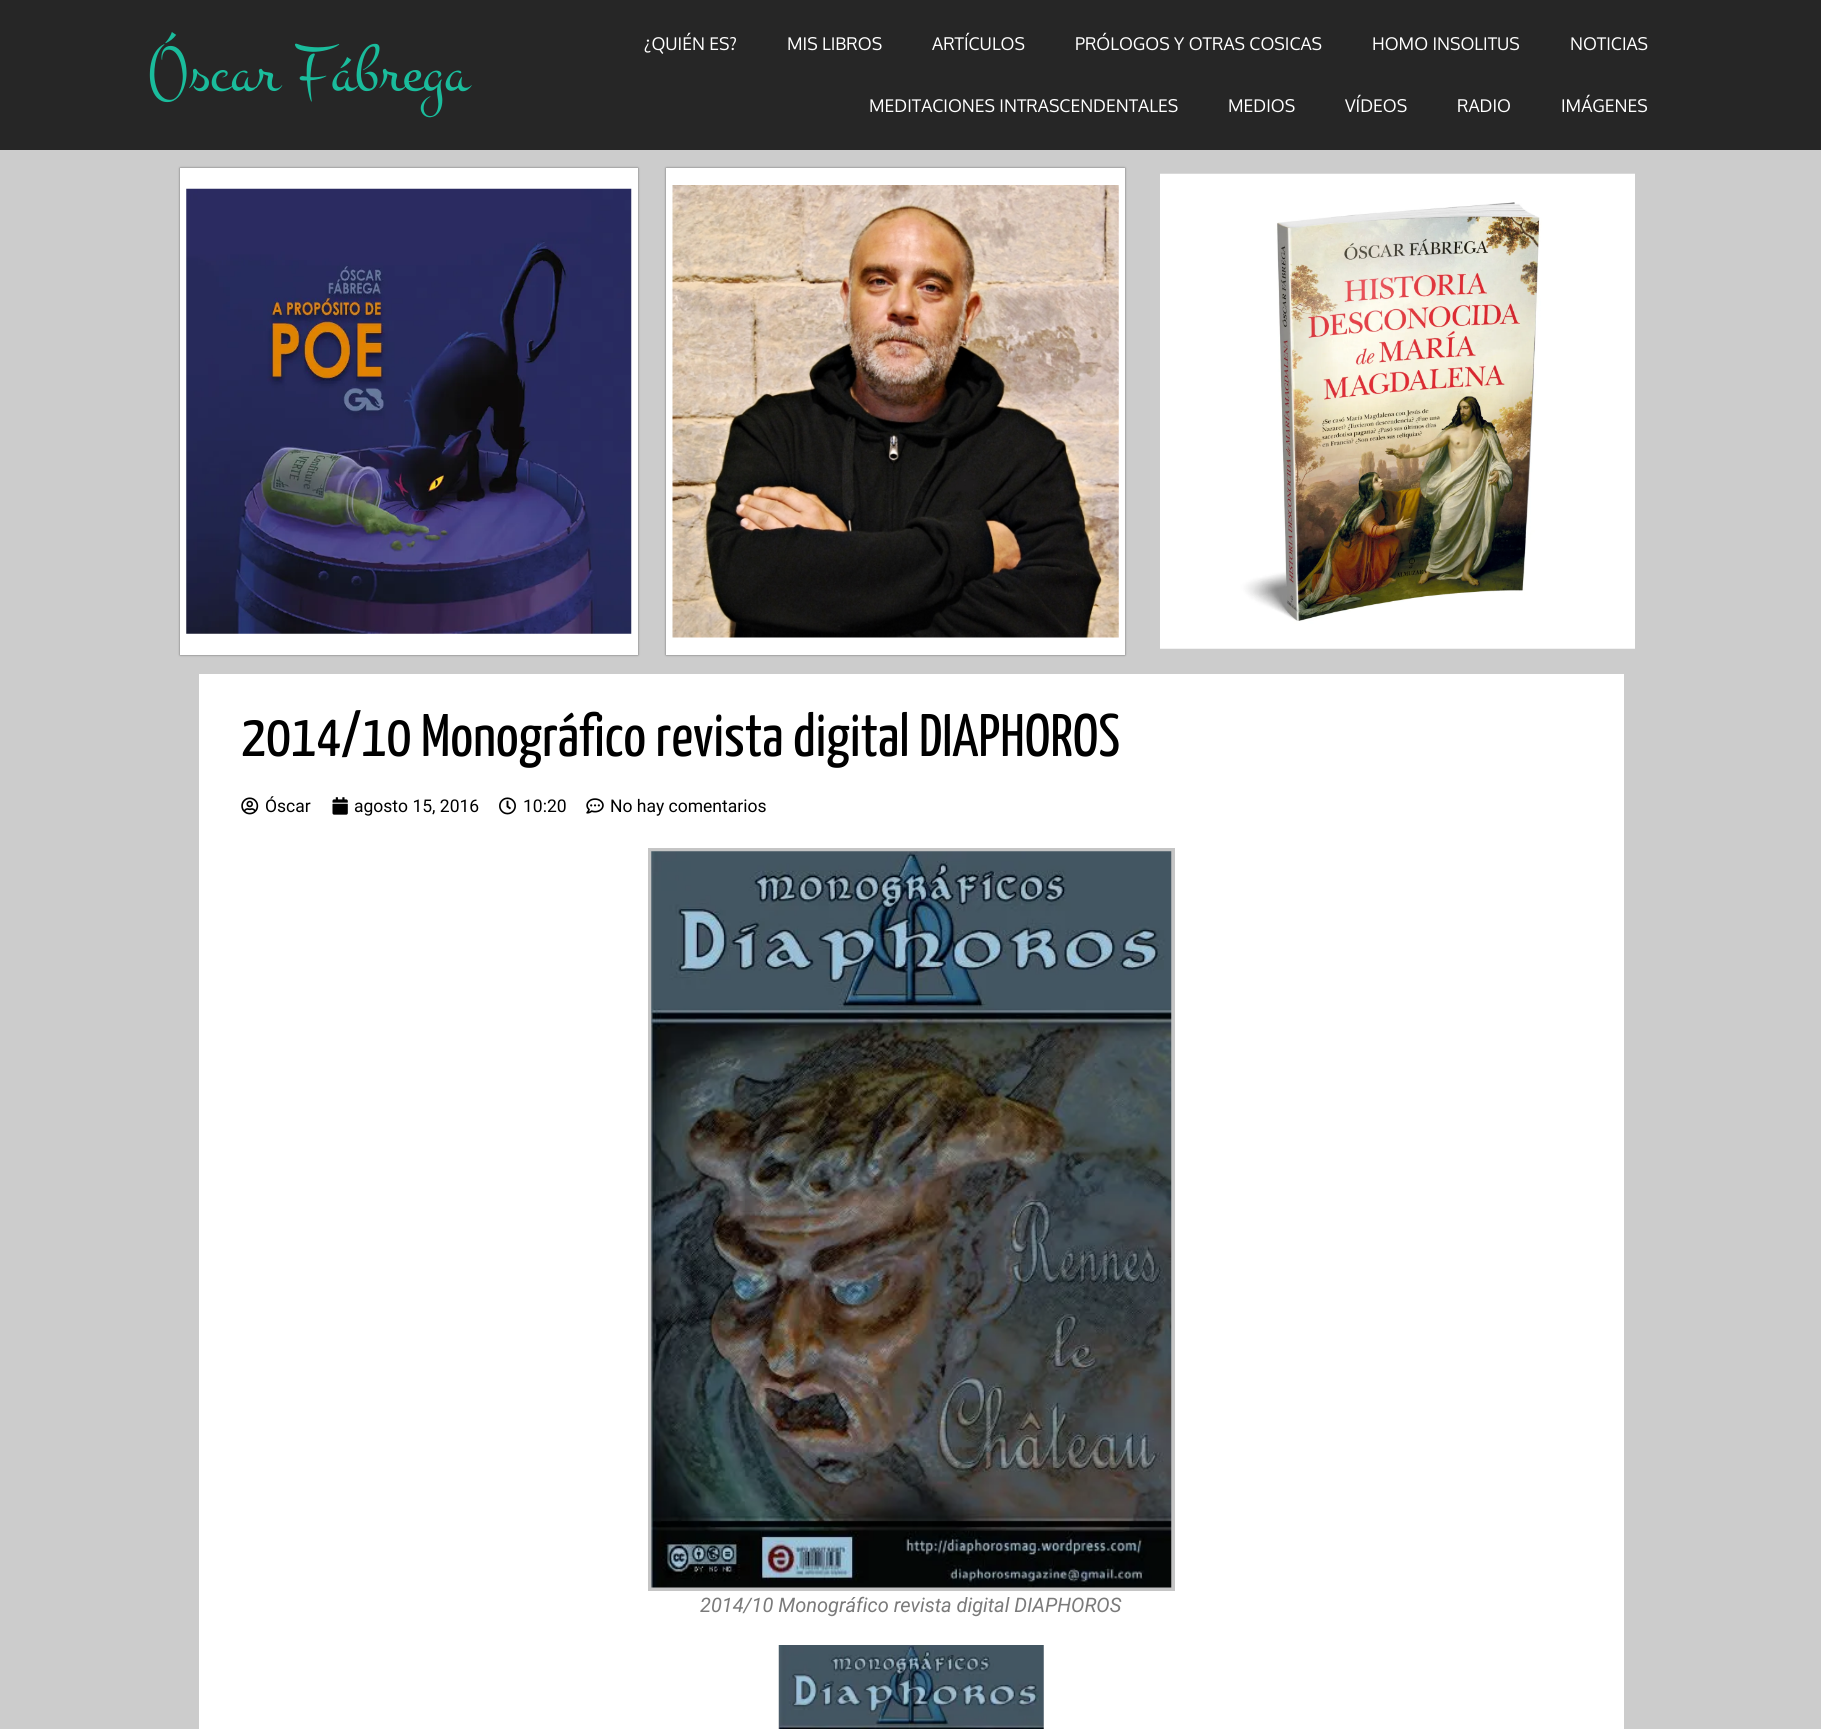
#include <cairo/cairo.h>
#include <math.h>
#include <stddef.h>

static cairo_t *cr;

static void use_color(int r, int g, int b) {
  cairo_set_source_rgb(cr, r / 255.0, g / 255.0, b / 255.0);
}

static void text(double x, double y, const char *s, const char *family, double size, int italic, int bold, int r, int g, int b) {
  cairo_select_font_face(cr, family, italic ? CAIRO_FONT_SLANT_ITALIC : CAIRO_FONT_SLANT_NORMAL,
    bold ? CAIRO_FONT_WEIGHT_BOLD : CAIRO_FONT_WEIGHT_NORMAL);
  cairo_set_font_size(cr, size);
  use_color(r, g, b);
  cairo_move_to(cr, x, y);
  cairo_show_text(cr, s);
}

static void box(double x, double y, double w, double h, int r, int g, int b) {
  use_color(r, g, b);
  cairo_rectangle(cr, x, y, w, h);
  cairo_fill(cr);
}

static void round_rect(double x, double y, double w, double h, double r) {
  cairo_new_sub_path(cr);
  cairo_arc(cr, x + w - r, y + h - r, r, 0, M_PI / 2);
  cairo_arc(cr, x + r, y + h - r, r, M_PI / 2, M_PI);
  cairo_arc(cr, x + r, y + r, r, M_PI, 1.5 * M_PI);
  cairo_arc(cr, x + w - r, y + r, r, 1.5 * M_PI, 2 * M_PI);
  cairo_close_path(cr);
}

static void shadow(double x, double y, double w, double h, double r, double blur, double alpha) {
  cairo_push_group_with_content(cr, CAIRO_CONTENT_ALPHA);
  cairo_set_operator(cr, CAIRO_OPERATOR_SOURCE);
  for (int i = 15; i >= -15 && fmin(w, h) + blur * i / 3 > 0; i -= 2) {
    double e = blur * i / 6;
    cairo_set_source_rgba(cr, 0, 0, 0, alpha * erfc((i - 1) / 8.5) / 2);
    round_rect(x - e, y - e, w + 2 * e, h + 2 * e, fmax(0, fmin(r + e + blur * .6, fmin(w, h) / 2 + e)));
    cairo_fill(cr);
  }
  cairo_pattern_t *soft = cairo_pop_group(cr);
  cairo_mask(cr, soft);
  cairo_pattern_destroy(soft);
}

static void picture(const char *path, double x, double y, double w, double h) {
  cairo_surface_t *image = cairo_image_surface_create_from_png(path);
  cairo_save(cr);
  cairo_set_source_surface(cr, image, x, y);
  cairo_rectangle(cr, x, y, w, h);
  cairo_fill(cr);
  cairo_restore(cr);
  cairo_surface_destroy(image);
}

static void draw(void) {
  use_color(204, 204, 204);
  cairo_paint(cr);
  box(0, 0, 1821, 150, 38, 38, 38);
  use_color(58, 58, 58);
  shadow(180, 168, 458, 487, 0, 1, 0.69);
  box(180, 168, 458, 487, 255, 255, 255);
  picture("img_01.png", 186, 188, 446, 446);
  use_color(58, 58, 58);
  shadow(666, 168, 459, 487, 0, 1, 0.69);
  box(666, 168, 459, 487, 255, 255, 255);
  picture("img_02.png", 672, 185, 447, 453);
  picture("img_03.png", 1160, 173, 475, 476);
  box(199, 674, 1425, 1055, 255, 255, 255);
  picture("img_04.png", 241, 797, 18, 18);
  picture("img_05.png", 332, 797, 16, 18);
  picture("img_06.png", 499, 797, 17, 18);
  picture("img_07.png", 586, 798, 18, 16);
  cairo_rectangle(cr, 650, 850, 523, 739);
  use_color(197, 197, 197);
  cairo_set_line_width(cr, 4);
  cairo_stroke(cr);
  picture("img_08.png", 651, 851, 521, 737);
  picture("img_09.png", 778, 1645, 266, 84);
  text(148, 90, "Óscar Fábrega", "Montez", 68.75, 0, 0, 26, 188, 156);
  text(644, 50, "¿QUIÉN ES?", "Oxygen", 17.5, 0, 0, 255, 255, 255);
  text(787, 50, "MIS LIBROS", "Oxygen", 17.5, 0, 0, 255, 255, 255);
  text(932, 50, "ARTÍCULOS", "Oxygen", 17.5, 0, 0, 255, 255, 255);
  text(1075, 50, "PRÓLOGOS Y OTRAS COSICAS", "Oxygen", 17.5, 0, 0, 255, 255, 255);
  text(1372, 50, "HOMO INSOLITUS", "Oxygen", 17.5, 0, 0, 255, 255, 255);
  text(1570, 50, "NOTICIAS", "Oxygen", 17.5, 0, 0, 255, 255, 255);
  text(869, 112, "MEDITACIONES INTRASCENDENTALES", "Oxygen", 17.5, 0, 0, 255, 255, 255);
  text(1228, 112, "MEDIOS", "Oxygen", 17.5, 0, 0, 255, 255, 255);
  text(1345, 112, "VÍDEOS", "Oxygen", 17.5, 0, 0, 255, 255, 255);
  text(1457, 112, "RADIO", "Oxygen", 17.5, 0, 0, 255, 255, 255);
  text(1561, 112, "IMÁGENES", "Oxygen", 17.5, 0, 0, 255, 255, 255);
  text(241, 756, "2014/10 Monográfico revista digital DIAPHOROS", "Yanone Kaffeesatz", 60, 0, 0, 0, 0, 0);
  text(265, 812, "Óscar", "Roboto", 17.5, 0, 0, 0, 0, 0);
  text(354, 812, "agosto 15, 2016", "Roboto", 17.5, 0, 0, 0, 0, 0);
  text(523, 812, "10:20", "Roboto", 17.5, 0, 0, 0, 0, 0);
  text(610, 812, "No hay comentarios", "Roboto", 17.5, 0, 0, 0, 0, 0);
  text(700, 1612, "2014/10 Monográfico revista digital DIAPHOROS", "Roboto", 20, 1, 0, 122, 122, 122);
}

int main(void) {
  cairo_surface_t *surface = cairo_image_surface_create(CAIRO_FORMAT_RGB24, 1821, 1729);
  cr = cairo_create(surface);
  cairo_font_options_t *options = cairo_font_options_create();
  cairo_font_options_set_hint_metrics(options, CAIRO_HINT_METRICS_OFF);
  cairo_font_options_set_hint_style(options, CAIRO_HINT_STYLE_NONE);
  cairo_set_font_options(cr, options);
  cairo_set_miter_limit(cr, 4);
  draw();
  cairo_surface_write_to_png(surface, "out.png");
  cairo_font_options_destroy(options);
  cairo_destroy(cr);
  cairo_surface_destroy(surface);
  return 0;
}
